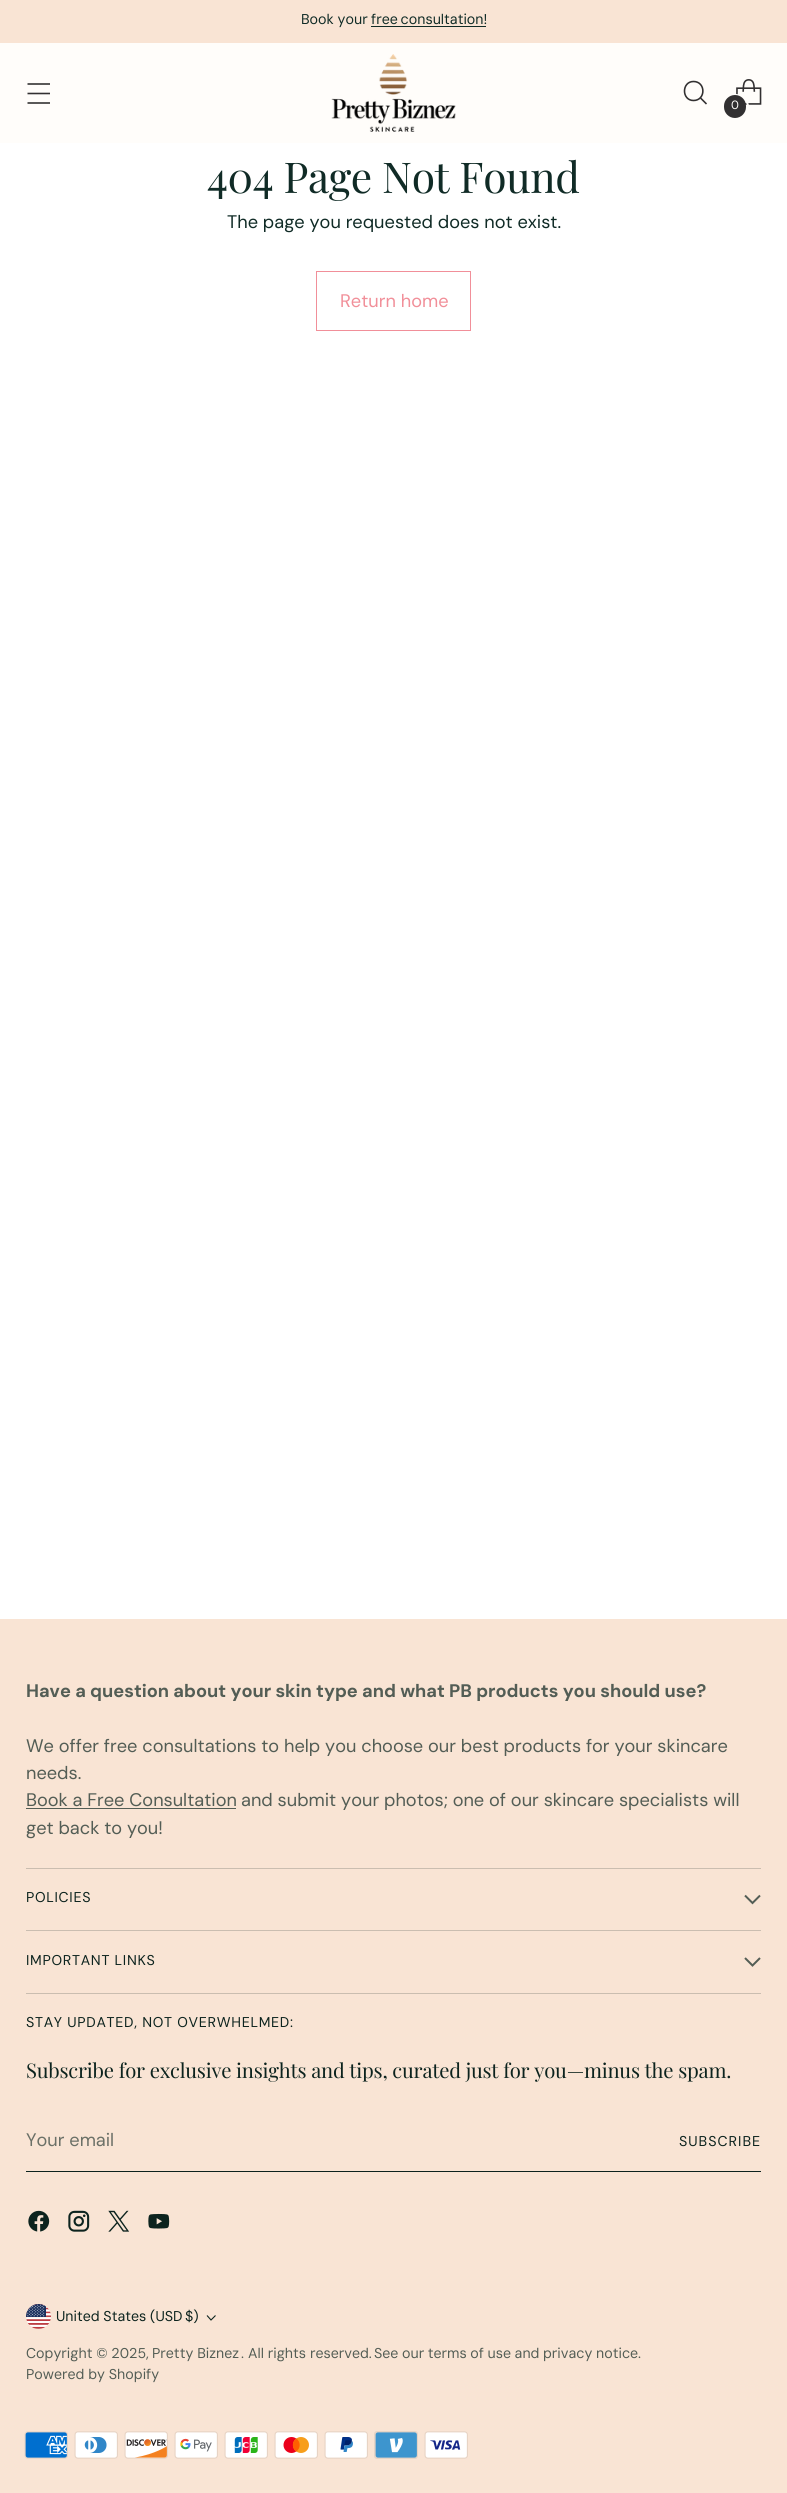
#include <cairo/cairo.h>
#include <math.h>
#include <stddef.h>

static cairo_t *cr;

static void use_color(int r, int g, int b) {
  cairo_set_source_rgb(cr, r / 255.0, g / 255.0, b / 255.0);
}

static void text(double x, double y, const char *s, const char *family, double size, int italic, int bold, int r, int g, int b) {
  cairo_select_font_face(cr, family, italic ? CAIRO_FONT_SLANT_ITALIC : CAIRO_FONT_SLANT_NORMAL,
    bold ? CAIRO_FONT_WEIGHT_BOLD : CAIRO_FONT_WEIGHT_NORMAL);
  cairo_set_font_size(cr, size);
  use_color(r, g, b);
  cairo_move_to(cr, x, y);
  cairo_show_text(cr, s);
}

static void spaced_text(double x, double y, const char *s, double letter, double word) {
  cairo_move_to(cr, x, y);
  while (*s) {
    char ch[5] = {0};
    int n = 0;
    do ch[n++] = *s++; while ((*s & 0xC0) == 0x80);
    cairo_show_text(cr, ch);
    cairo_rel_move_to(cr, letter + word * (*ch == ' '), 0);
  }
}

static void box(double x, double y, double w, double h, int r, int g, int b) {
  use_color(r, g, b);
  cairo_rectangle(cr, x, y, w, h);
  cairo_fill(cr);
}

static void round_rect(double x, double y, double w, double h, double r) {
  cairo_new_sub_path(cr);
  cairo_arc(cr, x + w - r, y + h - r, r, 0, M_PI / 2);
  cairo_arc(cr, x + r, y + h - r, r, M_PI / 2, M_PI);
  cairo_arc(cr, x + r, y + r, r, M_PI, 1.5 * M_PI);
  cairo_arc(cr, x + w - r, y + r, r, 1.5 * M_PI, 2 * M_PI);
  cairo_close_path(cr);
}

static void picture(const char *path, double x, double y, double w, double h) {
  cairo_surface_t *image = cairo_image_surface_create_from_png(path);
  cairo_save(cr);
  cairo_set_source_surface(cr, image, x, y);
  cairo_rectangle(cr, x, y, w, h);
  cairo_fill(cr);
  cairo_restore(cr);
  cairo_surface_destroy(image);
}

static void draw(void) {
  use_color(255, 255, 255);
  cairo_paint(cr);
  box(0, 0, 787, 43, 249, 228, 212);
  box(371, 26, 115, 1, 16, 43, 38);
  box(0, 43, 787, 100, 255, 253, 250);
  cairo_new_path(cr);
  cairo_move_to(cr, 27.5, 93.5);
  cairo_line_to(cr, 50, 93.5);
  cairo_move_to(cr, 27.5, 84);
  cairo_line_to(cr, 50, 84);
  cairo_move_to(cr, 27.5, 103);
  cairo_line_to(cr, 50, 103);
  use_color(50, 48, 49);
  cairo_set_line_width(cr, 1.6);
  cairo_stroke(cr);
  picture("img_01.png", 331, 54, 125, 78);
  cairo_new_path(cr);
  cairo_move_to(cr, 693.5, 100.5);
  cairo_curve_to(cr, 706, 100.5, 706, 81.5, 693.5, 81.5);
  cairo_curve_to(cr, 681.5, 81.5, 681.5, 100.5, 693.5, 100.5);
  cairo_close_path(cr);
  cairo_set_line_cap(cr, CAIRO_LINE_CAP_ROUND);
  cairo_stroke(cr);
  cairo_new_path(cr);
  cairo_move_to(cr, 700.5, 98);
  cairo_line_to(cr, 706.5, 104);
  cairo_set_line_cap(cr, CAIRO_LINE_CAP_BUTT);
  cairo_stroke(cr);
  picture("img_02.png", 736, 79, 26, 26);
  cairo_arc(cr, 736, 107, 12, 0, 2 * M_PI);
  use_color(255, 253, 250);
  cairo_set_line_width(cr, 2);
  cairo_stroke(cr);
  use_color(50, 48, 49);
  round_rect(724, 95, 22, 23, 11);
  cairo_fill(cr);
  cairo_rectangle(cr, 316.5, 271.5, 154, 59);
  use_color(241, 143, 153);
  cairo_set_line_width(cr, 1);
  cairo_stroke(cr);
  box(0, 1619, 787, 874, 249, 228, 212);
  box(26, 1868, 735, 1, 202, 189, 176);
  box(26, 1808, 210, 1, 83, 93, 85);
  box(26, 1930, 735, 1, 202, 189, 176);
  cairo_new_path(cr);
  cairo_move_to(cr, 745, 1895.5);
  cairo_line_to(cr, 752.5, 1903);
  cairo_line_to(cr, 760, 1895.5);
  use_color(83, 93, 85);
  cairo_set_line_width(cr, 2);
  cairo_stroke(cr);
  box(26, 1993, 735, 1, 202, 189, 176);
  cairo_new_path(cr);
  cairo_move_to(cr, 745, 1958);
  cairo_line_to(cr, 752.5, 1965.5);
  cairo_line_to(cr, 760, 1958);
  use_color(83, 93, 85);
  cairo_stroke(cr);
  box(26, 2171, 735, 1, 12, 35, 30);
  picture("img_03.png", 28, 2210, 22, 22);
  picture("img_04.png", 68, 2210, 22, 22);
  picture("img_05.png", 108, 2210, 22, 22);
  picture("img_06.png", 148, 2213, 22, 16);
  picture("img_07.png", 26, 2304, 25, 25);
  cairo_new_path(cr);
  cairo_move_to(cr, 207, 2315.5);
  cairo_line_to(cr, 211, 2320);
  cairo_line_to(cr, 215.5, 2315.5);
  cairo_set_line_width(cr, 1.1);
  cairo_stroke(cr);
  picture("img_08.png", 24, 2431, 44, 28);
  picture("img_09.png", 74, 2431, 44, 28);
  picture("img_10.png", 124, 2431, 44, 28);
  picture("img_11.png", 174, 2431, 44, 28);
  picture("img_12.png", 224, 2431, 44, 28);
  picture("img_13.png", 274, 2431, 44, 28);
  picture("img_14.png", 324, 2431, 44, 28);
  picture("img_15.png", 374, 2431, 44, 28);
  picture("img_16.png", 424, 2431, 44, 28);
  text(301, 24, "Book your", "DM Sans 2", 14.2, 0, 0, 16, 43, 38);
  spaced_text(371, 24, "free consultation!", 0, -1);
  text(731, 109, "0", "DM Sans 2", 12, 0, 0, 255, 253, 250);
  cairo_select_font_face(cr, "Playfair Display", CAIRO_FONT_SLANT_NORMAL, CAIRO_FONT_WEIGHT_NORMAL);
  cairo_set_font_size(cr, 42.5);
  use_color(16, 43, 38);
  spaced_text(207, 193, "404 Page Not Found", -0.4, 0);
  text(227, 228, "The page you requested does not exist.", "DM Sans", 18.2, 0, 0, 16, 43, 38);
  text(340, 307, "Return home", "DM Sans", 18.2, 0, 0, 241, 143, 153);
  text(26, 1697, "Have a question about your skin type and what PB products you should use?", "DM Sans", 18.2, 0, 1, 83, 93, 85);
  text(26, 1752, "We offer free consultations to help you choose our best products for your skincare", "DM Sans", 18.2, 0, 0, 83, 93, 85);
  text(26, 1779, "needs.", "DM Sans", 18.2, 0, 0, 83, 93, 85);
  text(26, 1806, "Book a Free Consultation", "DM Sans", 18.2, 0, 0, 83, 93, 85);
  text(241, 1806, "and submit your photos; one of our skincare specialists will", "DM Sans", 18.2, 0, 0, 83, 93, 85);
  text(26, 1834, "get back to you!", "DM Sans", 18.2, 0, 0, 83, 93, 85);
  cairo_select_font_face(cr, "DM Sans 2", CAIRO_FONT_SLANT_NORMAL, CAIRO_FONT_WEIGHT_NORMAL);
  cairo_set_font_size(cr, 14.2);
  use_color(12, 35, 30);
  spaced_text(26, 1902, "POLICIES", 0.7, 0);
  spaced_text(26, 1965, "IMPORTANT LINKS", 0.7, 0);
  spaced_text(26, 2027, "STAY UPDATED, NOT OVERWHELMED:", 0.7, 0);
  cairo_select_font_face(cr, "Playfair Display", CAIRO_FONT_SLANT_NORMAL, CAIRO_FONT_WEIGHT_NORMAL);
  cairo_set_font_size(cr, 20.25);
  spaced_text(26, 2078, "Subscribe for exclusive insights and tips, curated just for you—minus the spam.", -0.2, 0);
  text(26, 2146, "Your email", "DM Sans", 18.2, 0, 0, 107, 112, 103);
  cairo_select_font_face(cr, "DM Sans 2", CAIRO_FONT_SLANT_NORMAL, CAIRO_FONT_WEIGHT_NORMAL);
  cairo_set_font_size(cr, 14.2);
  use_color(12, 35, 30);
  spaced_text(679, 2146, "SUBSCRIBE", 1, 0);
  text(56, 2321, "United States (USD", "DM Sans 2", 14.2, 0, 0, 12, 35, 30);
  text(185, 2321, "$)", "DM Sans 2", 14.2, 0, 0, 12, 35, 30);
  text(26, 2358, "Copyright © 2025,", "DM Sans 2", 14.2, 0, 0, 83, 93, 85);
  text(152, 2358, "Pretty Biznez", "DM Sans 2", 14.2, 0, 0, 83, 93, 85);
  text(241, 2358, ".", "DM Sans 2", 14.2, 0, 0, 83, 93, 85);
  text(248, 2358, "All rights reserved.", "DM Sans 2", 14.2, 0, 0, 83, 93, 85);
  spaced_text(374, 2358, "See our terms of use and privacy notice.", 0, -0.25);
  text(26, 2379, "Powered by Shopify", "DM Sans 2", 14.2, 0, 0, 83, 93, 85);
}

int main(void) {
  cairo_surface_t *surface = cairo_image_surface_create(CAIRO_FORMAT_RGB24, 787, 2493);
  cr = cairo_create(surface);
  cairo_font_options_t *options = cairo_font_options_create();
  cairo_font_options_set_hint_metrics(options, CAIRO_HINT_METRICS_OFF);
  cairo_font_options_set_hint_style(options, CAIRO_HINT_STYLE_NONE);
  cairo_set_font_options(cr, options);
  cairo_set_miter_limit(cr, 4);
  draw();
  cairo_surface_write_to_png(surface, "out.png");
  cairo_font_options_destroy(options);
  cairo_destroy(cr);
  cairo_surface_destroy(surface);
  return 0;
}
